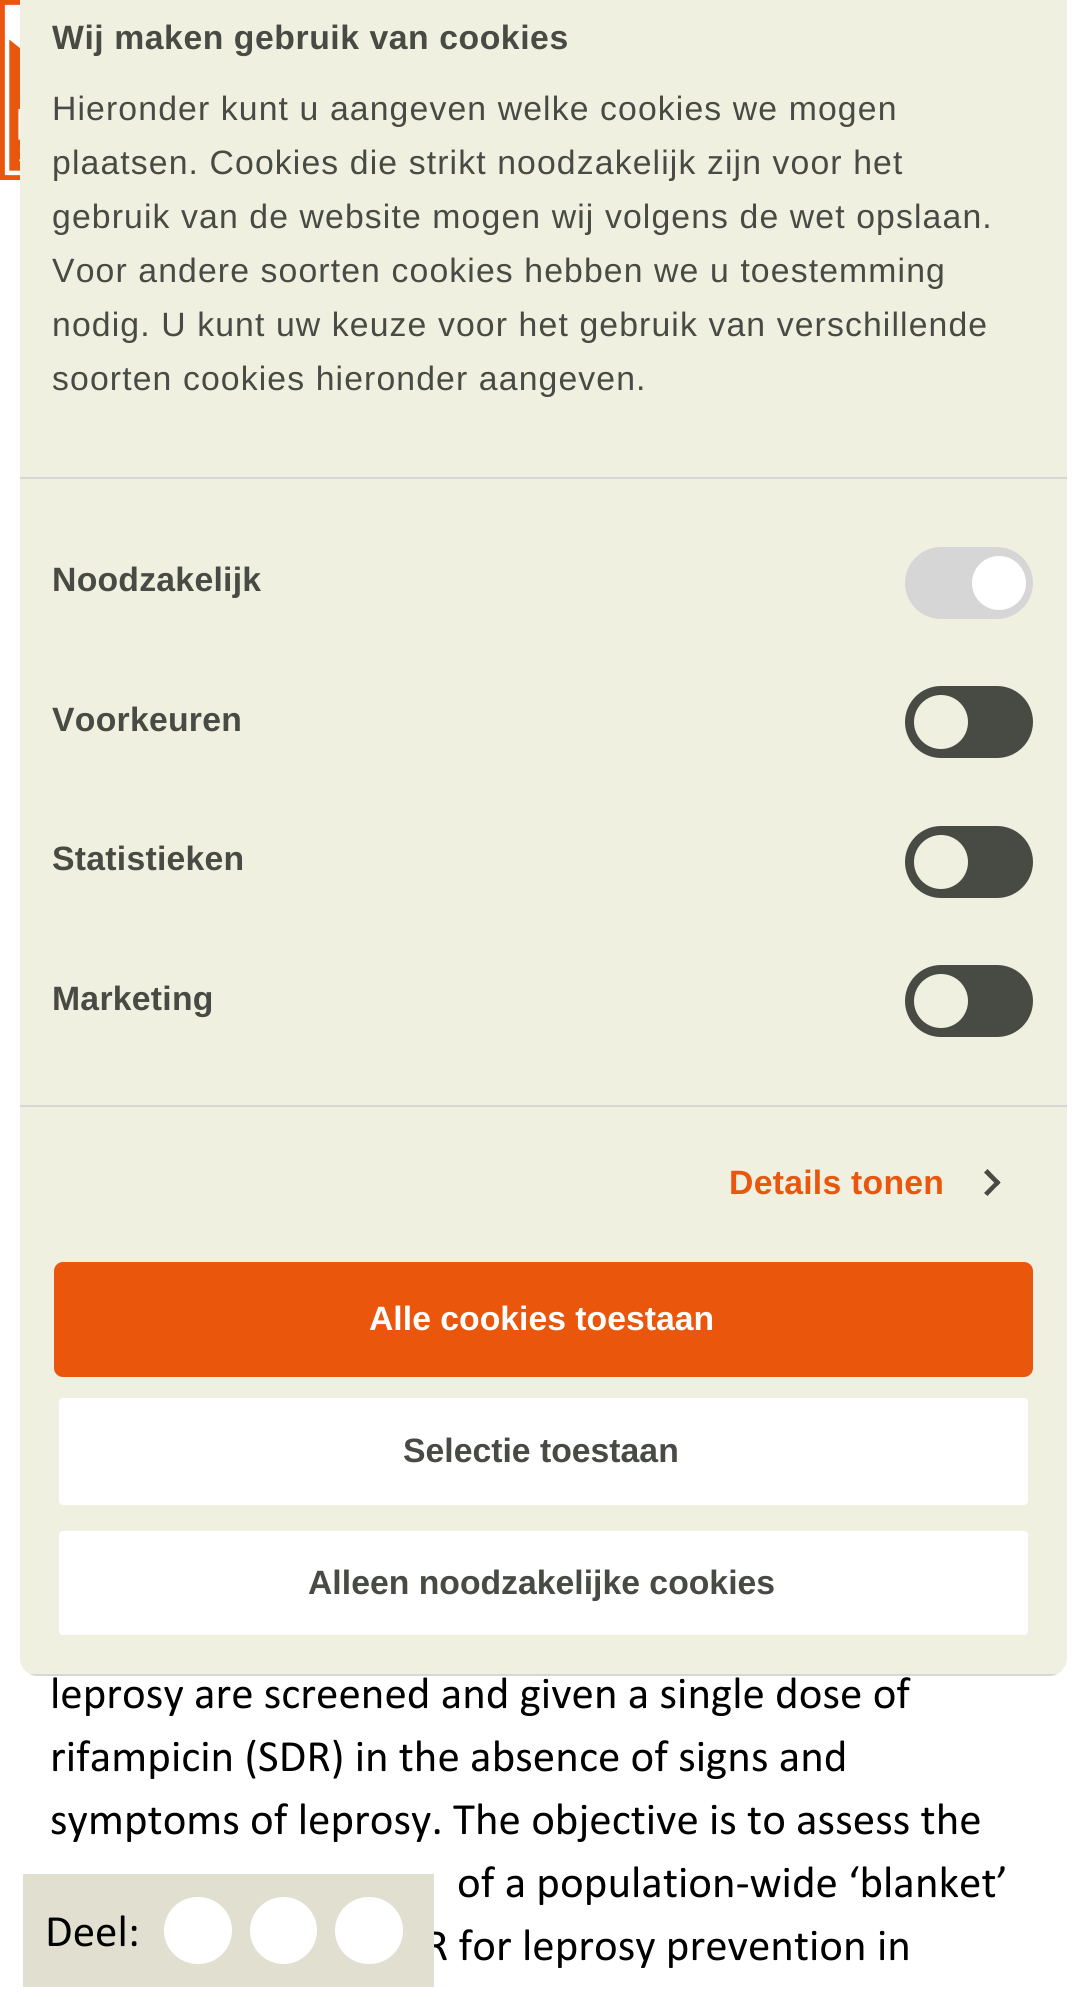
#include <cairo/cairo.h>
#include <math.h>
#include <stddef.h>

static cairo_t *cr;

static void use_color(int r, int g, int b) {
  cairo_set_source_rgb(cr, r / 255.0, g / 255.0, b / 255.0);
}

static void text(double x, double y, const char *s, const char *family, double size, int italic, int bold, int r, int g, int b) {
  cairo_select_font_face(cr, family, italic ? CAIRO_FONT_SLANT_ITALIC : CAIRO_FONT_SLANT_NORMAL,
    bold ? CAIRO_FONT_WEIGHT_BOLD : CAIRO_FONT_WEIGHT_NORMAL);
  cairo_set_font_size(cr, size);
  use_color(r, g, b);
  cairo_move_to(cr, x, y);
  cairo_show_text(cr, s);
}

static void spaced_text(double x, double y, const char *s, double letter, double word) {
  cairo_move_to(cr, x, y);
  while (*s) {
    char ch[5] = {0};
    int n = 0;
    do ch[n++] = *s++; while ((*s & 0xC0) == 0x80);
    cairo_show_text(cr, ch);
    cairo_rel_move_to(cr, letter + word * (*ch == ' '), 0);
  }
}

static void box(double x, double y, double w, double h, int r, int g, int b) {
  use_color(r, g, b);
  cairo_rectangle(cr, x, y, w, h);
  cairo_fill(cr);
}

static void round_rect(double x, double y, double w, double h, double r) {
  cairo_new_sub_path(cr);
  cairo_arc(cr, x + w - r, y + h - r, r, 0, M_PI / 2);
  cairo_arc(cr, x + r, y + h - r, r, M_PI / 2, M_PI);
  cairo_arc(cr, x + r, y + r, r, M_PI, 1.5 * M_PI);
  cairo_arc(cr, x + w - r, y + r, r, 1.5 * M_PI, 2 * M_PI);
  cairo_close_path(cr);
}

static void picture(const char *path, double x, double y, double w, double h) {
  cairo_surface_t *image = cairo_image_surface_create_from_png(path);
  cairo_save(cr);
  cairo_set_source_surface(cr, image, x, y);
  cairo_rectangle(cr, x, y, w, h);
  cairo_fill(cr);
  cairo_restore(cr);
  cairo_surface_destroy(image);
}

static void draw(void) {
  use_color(255, 255, 255);
  cairo_paint(cr);
  picture("img_01.png", 0, 0, 20, 180);
  use_color(240, 240, 225);
  round_rect(20, -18, 1047, 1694, 18);
  cairo_fill(cr);
  box(20, 477, 1047, 2, 214, 214, 214);
  box(20, 1105, 1047, 2, 214, 214, 214);
  round_rect(905, 547, 128, 72, 36);
  cairo_fill(cr);
  use_color(255, 255, 255);
  cairo_arc(cr, 999, 583, 27, 0, 2 * M_PI);
  cairo_fill(cr);
  use_color(72, 75, 67);
  round_rect(905, 686, 128, 72, 36);
  cairo_fill(cr);
  use_color(240, 240, 225);
  cairo_arc(cr, 941, 722, 27, 0, 2 * M_PI);
  cairo_fill(cr);
  use_color(72, 75, 67);
  round_rect(905, 826, 128, 72, 36);
  cairo_fill(cr);
  use_color(240, 240, 225);
  cairo_arc(cr, 941, 862, 27, 0, 2 * M_PI);
  cairo_fill(cr);
  use_color(72, 75, 67);
  round_rect(905, 965, 128, 72, 36);
  cairo_fill(cr);
  use_color(240, 240, 225);
  cairo_arc(cr, 941, 1001, 27, 0, 2 * M_PI);
  cairo_fill(cr);
  use_color(72, 75, 67);
  cairo_new_path(cr);
  cairo_move_to(cr, 987.5, 1169);
  cairo_line_to(cr, 1000.5, 1182.5);
  cairo_line_to(cr, 997.5, 1186);
  cairo_line_to(cr, 984, 1172.5);
  cairo_close_path(cr);
  cairo_fill(cr);
  cairo_new_path(cr);
  cairo_move_to(cr, 997.5, 1179.5);
  cairo_line_to(cr, 1000.5, 1182.5);
  cairo_line_to(cr, 987.5, 1196);
  cairo_line_to(cr, 984, 1193);
  cairo_close_path(cr);
  cairo_fill(cr);
  cairo_save(cr);
  round_rect(20, -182, 1047, 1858, 18);
  cairo_clip(cr);
  box(30, 1674, 1027, 2, 214, 214, 214);
  cairo_restore(cr);
  use_color(233, 86, 12);
  round_rect(56.5, 1264.5, 974, 110, 6.5);
  cairo_fill_preserve(cr);
  cairo_set_line_width(cr, 5);
  cairo_stroke(cr);
  use_color(255, 255, 255);
  round_rect(56.5, 1395.5, 974, 112, 6.5);
  cairo_fill_preserve(cr);
  use_color(240, 240, 225);
  cairo_stroke(cr);
  use_color(255, 255, 255);
  round_rect(56.5, 1528.5, 974, 109, 6.5);
  cairo_fill_preserve(cr);
  use_color(240, 240, 225);
  cairo_stroke(cr);
  cairo_select_font_face(cr, "Liberation Sans", CAIRO_FONT_SLANT_NORMAL, CAIRO_FONT_WEIGHT_BOLD);
  cairo_set_font_size(cr, 33.75);
  use_color(72, 75, 67);
  spaced_text(52, 49, "Wij maken gebruik van cookies", 0.55, 0);
  cairo_select_font_face(cr, "Liberation Sans", CAIRO_FONT_SLANT_NORMAL, CAIRO_FONT_WEIGHT_NORMAL);
  spaced_text(52, 120, "Hieronder kunt u aangeven welke cookies we mogen", 1.12, 0);
  spaced_text(52, 174, "plaatsen. Cookies die strikt noodzakelijk zijn voor het", 1.12, 0);
  spaced_text(52, 228, "gebruik van de website mogen wij volgens de wet opslaan.", 1.12, 0);
  spaced_text(52, 282, "Voor andere soorten cookies hebben we u toestemming", 1.12, 0);
  spaced_text(52, 336, "nodig. U kunt uw keuze voor het gebruik van verschillende", 1.12, 0);
  spaced_text(52, 390, "soorten cookies hieronder aangeven.", 1.12, 0);
  cairo_select_font_face(cr, "Liberation Sans", CAIRO_FONT_SLANT_NORMAL, CAIRO_FONT_WEIGHT_BOLD);
  spaced_text(52, 591, "Noodzakelijk", 0.25, 0);
  spaced_text(52, 731, "Voorkeuren", 0.25, 0);
  spaced_text(52, 870, "Statistieken", 0.25, 0);
  spaced_text(52, 1010, "Marketing", 0.25, 0);
  use_color(233, 86, 12);
  spaced_text(729, 1194, "Details tonen", 0.25, 0);
  text(369, 1330, "Alle cookies toestaan", "Liberation Sans", 33.75, 0, 1, 255, 255, 255);
  text(403, 1462, "Selectie toestaan", "Liberation Sans", 33.75, 0, 1, 72, 75, 67);
  text(308, 1594, "Alleen noodzakelijke cookies", "Liberation Sans", 33.75, 0, 1, 72, 75, 67);
  text(50, 1708, "leprosy are screened and given a single dose of", "Calibri", 45, 0, 0, 0, 0, 0);
  text(50, 1771, "rifampicin (SDR) in the absence of signs and", "Calibri", 45, 0, 0, 0, 0, 0);
  text(50, 1834, "symptoms of leprosy. The objective is to assess the", "Calibri", 45, 0, 0, 0, 0, 0);
  text(457, 1897, "of a population-wide ‘blanket’", "Calibri", 45, 0, 0, 0, 0, 0);
  text(424, 1960, "R for leprosy prevention in", "Calibri", 45, 0, 0, 0, 0, 0);
  box(23, 1874, 411, 113, 225, 223, 207);
  text(45, 1946, "Deel:", "Calibri", 45, 0, 0, 0, 0, 0);
  use_color(255, 255, 255);
  round_rect(164, 1897, 68, 67, 33.5);
  cairo_fill(cr);
  cairo_arc(cr, 283.5, 1930.5, 33.5, 0, 2 * M_PI);
  cairo_fill(cr);
  round_rect(335, 1897, 68, 67, 33.5);
  cairo_fill(cr);
}

int main(void) {
  cairo_surface_t *surface = cairo_image_surface_create(CAIRO_FORMAT_RGB24, 1082, 2009);
  cr = cairo_create(surface);
  cairo_font_options_t *options = cairo_font_options_create();
  cairo_font_options_set_hint_metrics(options, CAIRO_HINT_METRICS_OFF);
  cairo_font_options_set_hint_style(options, CAIRO_HINT_STYLE_NONE);
  cairo_set_font_options(cr, options);
  cairo_set_miter_limit(cr, 4);
  draw();
  cairo_surface_write_to_png(surface, "out.png");
  cairo_font_options_destroy(options);
  cairo_destroy(cr);
  cairo_surface_destroy(surface);
  return 0;
}
